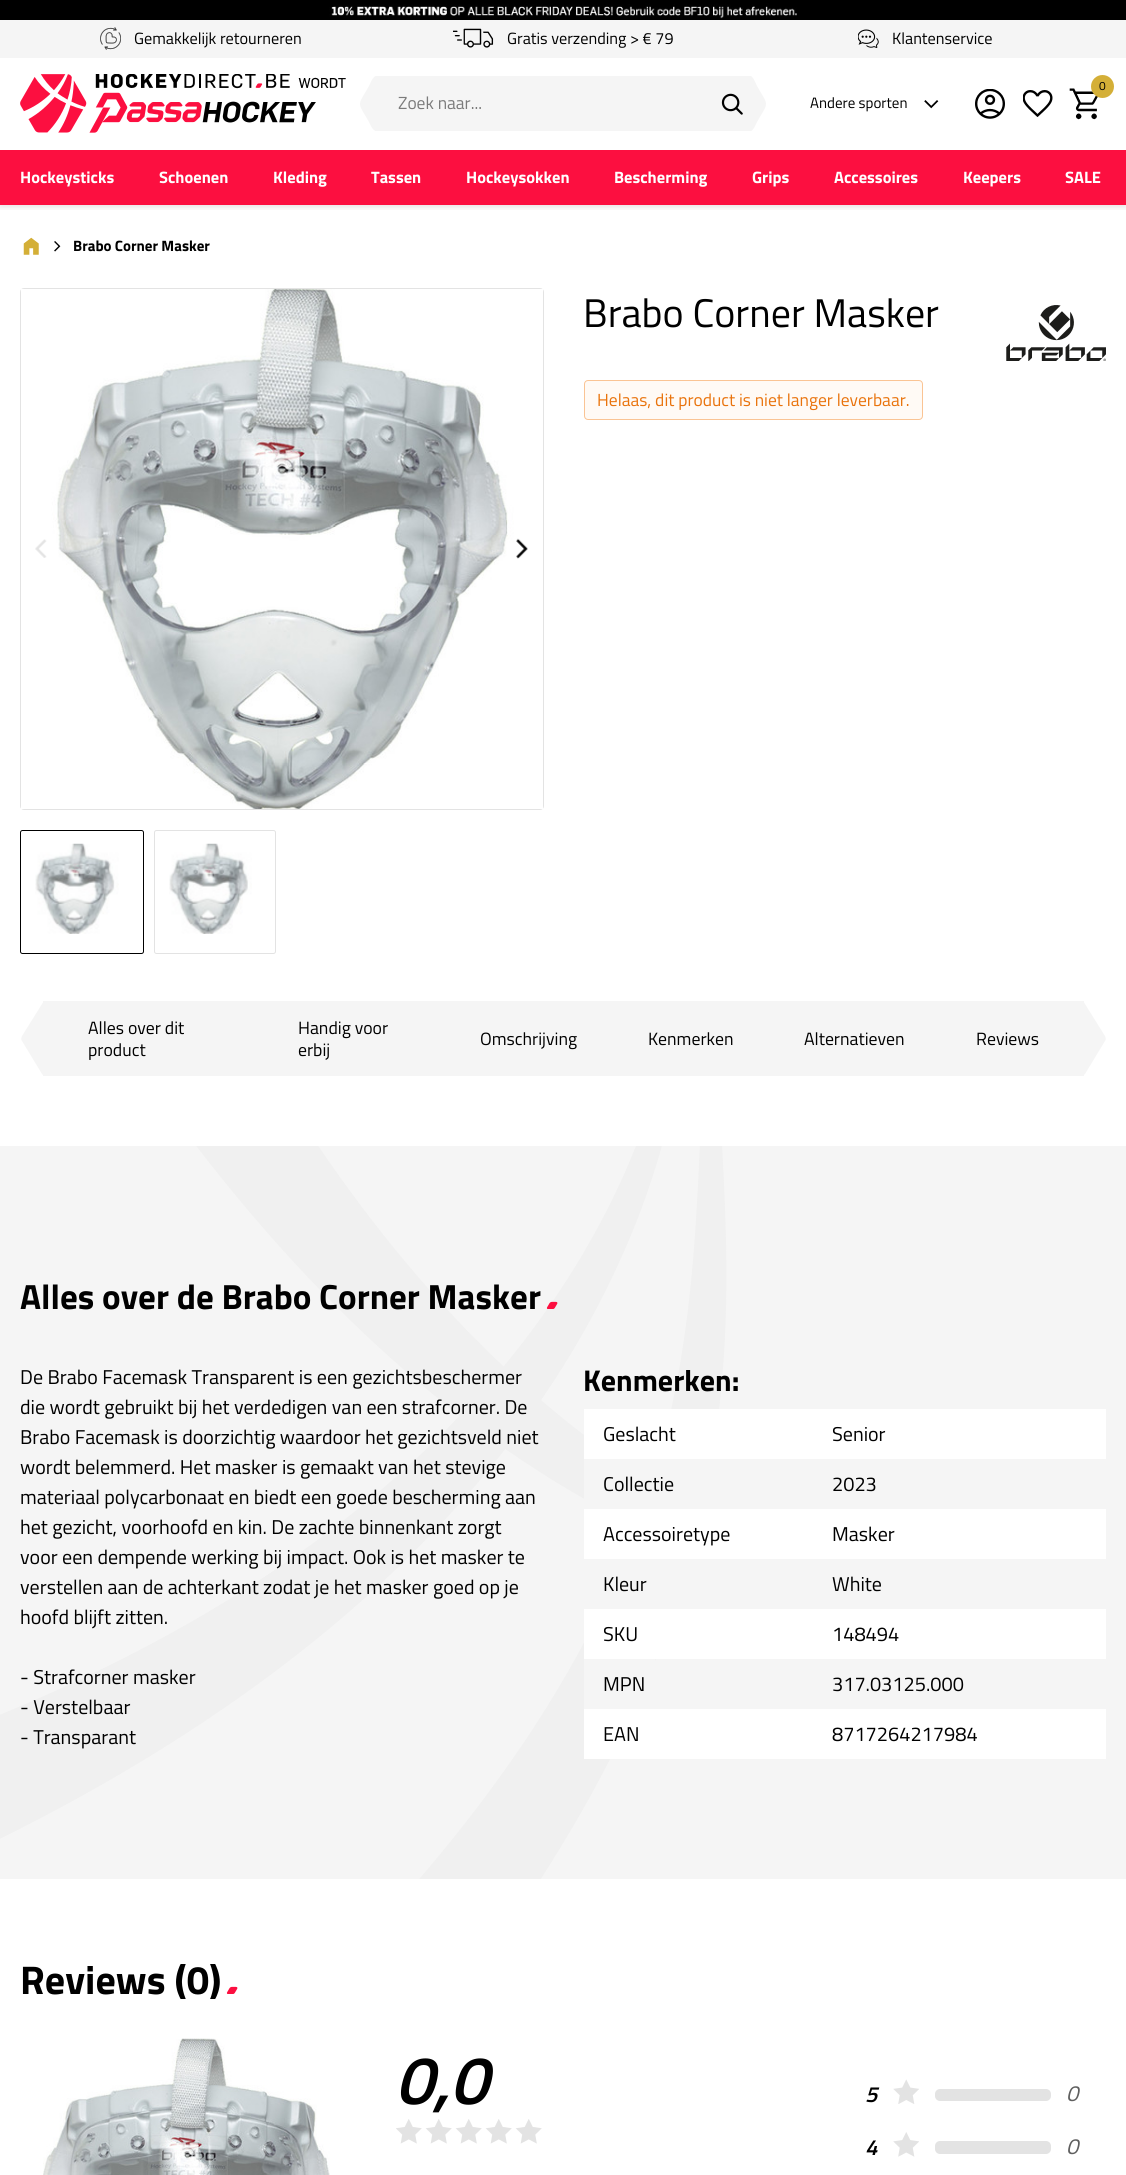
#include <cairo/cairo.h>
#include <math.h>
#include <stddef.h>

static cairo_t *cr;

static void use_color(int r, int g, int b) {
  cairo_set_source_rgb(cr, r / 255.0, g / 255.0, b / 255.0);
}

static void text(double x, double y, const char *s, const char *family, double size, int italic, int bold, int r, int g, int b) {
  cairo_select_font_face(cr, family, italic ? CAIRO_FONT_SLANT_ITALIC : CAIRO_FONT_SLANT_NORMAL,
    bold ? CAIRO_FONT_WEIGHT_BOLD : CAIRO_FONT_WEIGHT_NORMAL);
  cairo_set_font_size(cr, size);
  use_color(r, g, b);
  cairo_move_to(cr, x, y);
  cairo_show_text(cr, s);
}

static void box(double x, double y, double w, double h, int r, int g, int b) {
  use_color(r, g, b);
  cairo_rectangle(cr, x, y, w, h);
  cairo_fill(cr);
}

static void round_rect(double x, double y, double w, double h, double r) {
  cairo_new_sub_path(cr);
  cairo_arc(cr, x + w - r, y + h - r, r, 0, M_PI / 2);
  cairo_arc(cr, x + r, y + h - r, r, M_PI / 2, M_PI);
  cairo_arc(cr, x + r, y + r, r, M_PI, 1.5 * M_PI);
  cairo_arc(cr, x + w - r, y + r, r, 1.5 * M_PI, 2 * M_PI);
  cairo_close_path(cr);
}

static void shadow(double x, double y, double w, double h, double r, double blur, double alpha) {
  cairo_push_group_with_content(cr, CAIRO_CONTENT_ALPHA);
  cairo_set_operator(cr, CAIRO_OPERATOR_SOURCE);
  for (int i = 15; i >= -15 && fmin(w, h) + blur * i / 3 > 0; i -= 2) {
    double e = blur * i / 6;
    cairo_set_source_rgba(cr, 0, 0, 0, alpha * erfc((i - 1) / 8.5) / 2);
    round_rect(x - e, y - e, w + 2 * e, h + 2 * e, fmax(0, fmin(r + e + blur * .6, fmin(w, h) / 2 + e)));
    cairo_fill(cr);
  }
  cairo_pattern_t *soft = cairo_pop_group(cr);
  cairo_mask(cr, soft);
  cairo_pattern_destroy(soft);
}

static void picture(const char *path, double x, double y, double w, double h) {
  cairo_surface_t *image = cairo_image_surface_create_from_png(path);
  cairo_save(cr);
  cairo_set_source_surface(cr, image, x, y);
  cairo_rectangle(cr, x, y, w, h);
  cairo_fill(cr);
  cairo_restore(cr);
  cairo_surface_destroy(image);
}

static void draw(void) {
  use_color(255, 255, 255);
  cairo_paint(cr);
  picture("img_01.png", 0, 0, 1126, 20);
  cairo_save(cr);
  cairo_rectangle(cr, 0, 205, 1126, 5);
  cairo_clip(cr);
  use_color(58, 5, 16);
  shadow(0, 59, 1126, 147, 0, 4, 0.15);
  cairo_restore(cr);
  box(0, 20, 1126, 38, 245, 245, 245);
  picture("img_02.png", 100, 27, 21, 23);
  picture("img_03.png", 453, 28, 41, 20);
  picture("img_04.png", 858, 29, 21, 19);
  picture("img_05.png", 20, 74, 326, 59);
  cairo_save(cr);
  cairo_rectangle(cr, 748, 76, 18, 55);
  cairo_clip(cr);
  cairo_new_path(cr);
  cairo_move_to(cr, 748, 75);
  cairo_curve_to(cr, 753, 75, 755, 82, 757, 86);
  cairo_curve_to(cr, 769, 107, 769, 101, 757, 122);
  cairo_curve_to(cr, 755, 126, 753, 132, 748, 132);
  cairo_close_path(cr);
  cairo_fill(cr);
  cairo_restore(cr);
  cairo_save(cr);
  cairo_rectangle(cr, 360, 76, 19, 55);
  cairo_clip(cr);
  cairo_new_path(cr);
  cairo_move_to(cr, 379, 75);
  cairo_curve_to(cr, 373, 75, 371, 82, 369, 86);
  cairo_curve_to(cr, 357, 107, 357, 101, 369, 122);
  cairo_curve_to(cr, 371, 126, 373, 132, 379, 132);
  cairo_close_path(cr);
  cairo_fill(cr);
  cairo_restore(cr);
  box(379, 76, 369, 55, 245, 245, 245);
  picture("img_06.png", 721, 93, 22, 22);
  picture("img_07.png", 1069, 88, 29, 32);
  use_color(212, 175, 55);
  cairo_arc(cr, 1102.5, 86.5, 11.5, 0, 2 * M_PI);
  cairo_fill(cr);
  picture("img_08.png", 975, 89, 30, 30);
  picture("img_09.png", 1023, 90, 30, 27);
  picture("img_10.png", 924, 100, 15, 9);
  box(0, 150, 1126, 55, 252, 15, 64);
  picture("img_11.png", 23, 237, 16, 18);
  picture("img_12.png", 54, 241, 7, 11);
  round_rect(20.5, 288.5, 523, 521, 3.5);
  use_color(227, 227, 227);
  cairo_set_line_width(cr, 1);
  cairo_stroke(cr);
  picture("img_13.png", 21, 289, 522, 520);
  picture("img_14.png", 35, 539, 12, 19);
  picture("img_15.png", 516, 538, 12, 21);
  round_rect(20.5, 830.5, 123, 123, 2);
  use_color(0, 0, 0);
  cairo_stroke(cr);
  picture("img_16.png", 35, 843, 84, 91);
  round_rect(154.5, 830.5, 121, 123, 2);
  use_color(227, 227, 227);
  cairo_stroke(cr);
  picture("img_17.png", 169, 843, 83, 91);
  picture("img_18.png", 1006, 305, 100, 56);
  use_color(255, 250, 245);
  round_rect(584.5, 380.5, 338, 39, 3.5);
  cairo_fill_preserve(cr);
  use_color(250, 196, 148);
  cairo_stroke(cr);
  box(43, 1001, 1041, 75, 245, 245, 245);
  cairo_save(cr);
  cairo_rectangle(cr, 20, 1001, 23, 75);
  cairo_clip(cr);
  cairo_set_fill_rule(cr, CAIRO_FILL_RULE_EVEN_ODD);
  cairo_new_path(cr);
  cairo_move_to(cr, 46, 1001);
  cairo_line_to(cr, 46, 1076);
  cairo_curve_to(cr, 44, 1076, 43, 1075, 42, 1074);
  cairo_line_to(cr, 22, 1041);
  cairo_curve_to(cr, 21, 1040, 21, 1038, 22, 1036);
  cairo_line_to(cr, 42, 1004);
  cairo_curve_to(cr, 43, 1002, 44, 1001, 46, 1001);
  cairo_close_path(cr);
  cairo_fill(cr);
  cairo_restore(cr);
  cairo_save(cr);
  cairo_rectangle(cr, 1084, 1001, 22, 75);
  cairo_clip(cr);
  cairo_set_fill_rule(cr, CAIRO_FILL_RULE_EVEN_ODD);
  cairo_new_path(cr);
  cairo_move_to(cr, 1081, 1076);
  cairo_line_to(cr, 1081, 1001);
  cairo_curve_to(cr, 1082, 1001, 1084, 1002, 1085, 1004);
  cairo_line_to(cr, 1105, 1036);
  cairo_curve_to(cr, 1106, 1038, 1106, 1040, 1105, 1041);
  cairo_line_to(cr, 1085, 1074);
  cairo_curve_to(cr, 1084, 1075, 1082, 1076, 1081, 1076);
  cairo_close_path(cr);
  cairo_fill(cr);
  cairo_restore(cr);
  box(0, 1146, 1126, 733, 245, 245, 245);
  picture("img_19.png", 0, 1146, 727, 733);
  picture("img_20.png", 546, 1301, 12, 8);
  box(584, 1409, 522, 50, 255, 255, 255);
  box(584, 1459, 128, 50, 245, 245, 245);
  box(584, 1509, 522, 50, 255, 255, 255);
  box(601, 1559, 126, 50, 245, 245, 245);
  box(584, 1609, 522, 50, 255, 255, 255);
  box(584, 1659, 71, 50, 245, 245, 245);
  box(584, 1709, 522, 50, 255, 255, 255);
  picture("img_21.png", 226, 1986, 12, 8);
  picture("img_22.png", 43, 2038, 287, 137);
  picture("img_23.png", 396, 2119, 146, 25);
  picture("img_24.png", 893, 2079, 26, 25);
  use_color(227, 227, 227);
  round_rect(935, 2089, 116, 12, 5);
  cairo_fill(cr);
  picture("img_25.png", 893, 2132, 26, 25);
  round_rect(935, 2141, 116, 13, 5);
  cairo_fill(cr);
  text(134, 44, "Gemakkelijk retourneren", "Titillium Web", 16.25, 0, 0, 0, 0, 0);
  text(507, 44, "Gratis verzending > € 79", "Titillium Web", 16.25, 0, 0, 0, 0, 0);
  text(892, 44, "Klantenservice", "Titillium Web", 16.25, 0, 0, 0, 0, 0);
  text(398, 109, "Zoek naar...", "Titillium Web", 17.5, 0, 0, 123, 123, 123);
  text(1099, 90, "0", "Titillium Web", 12, 0, 0, 0, 0, 0);
  text(810, 108, "Andere sporten", "Titillium Web", 15, 0, 0, 0, 0, 0);
  text(20, 183, "Hockeysticks", "Titillium Web", 16.5, 0, 1, 255, 255, 255);
  text(159, 183, "Schoenen", "Titillium Web", 16.5, 0, 1, 255, 255, 255);
  text(273, 183, "Kleding", "Titillium Web", 16.5, 0, 1, 255, 255, 255);
  text(371, 183, "Tassen", "Titillium Web", 16.5, 0, 1, 255, 255, 255);
  text(466, 183, "Hockeysokken", "Titillium Web", 16.5, 0, 1, 255, 255, 255);
  text(614, 183, "Bescherming", "Titillium Web", 16.5, 0, 1, 255, 255, 255);
  text(752, 183, "Grips", "Titillium Web", 16.5, 0, 1, 255, 255, 255);
  text(834, 183, "Accessoires", "Titillium Web", 16.5, 0, 1, 255, 255, 255);
  text(963, 183, "Keepers", "Titillium Web", 16.5, 0, 1, 255, 255, 255);
  text(1065, 183, "SALE", "Titillium Web", 16.5, 0, 1, 255, 255, 255);
  text(73, 251, "Brabo Corner Masker", "Titillium Web", 15, 0, 1, 0, 0, 0);
  text(583, 327, "Brabo Corner Masker", "Titillium Web", 40, 0, 0, 0, 0, 0);
  text(597, 406, "Helaas, dit product is niet langer leverbaar.", "Titillium Web", 17.5, 0, 0, 233, 115, 12);
  text(88, 1034, "Alles over dit", "Titillium Web", 17.75, 0, 0, 0, 0, 0);
  text(88, 1056, "product", "Titillium Web", 17.75, 0, 0, 0, 0, 0);
  text(298, 1034, "Handig voor", "Titillium Web", 17.75, 0, 0, 0, 0, 0);
  text(298, 1056, "erbij", "Titillium Web", 17.75, 0, 0, 0, 0, 0);
  text(480, 1045, "Omschrijving", "Titillium Web", 17.75, 0, 0, 0, 0, 0);
  text(648, 1045, "Kenmerken", "Titillium Web", 17.75, 0, 0, 0, 0, 0);
  text(804, 1045, "Alternatieven", "Titillium Web", 17.75, 0, 0, 0, 0, 0);
  text(976, 1045, "Reviews", "Titillium Web", 17.75, 0, 0, 0, 0, 0);
  text(20, 1309, "Alles over de Brabo Corner Masker", "Titillium Web", 35, 0, 1, 0, 0, 0);
  text(20, 1384, "De Brabo Facemask Transparent is een gezichtsbeschermer", "Titillium Web", 20, 0, 0, 0, 0, 0);
  text(20, 1414, "die wordt gebruikt bij het verdedigen van een strafcorner. De", "Titillium Web", 20, 0, 0, 0, 0, 0);
  text(20, 1444, "Brabo Facemask is doorzichtig waardoor het gezichtsveld niet", "Titillium Web", 20, 0, 0, 0, 0, 0);
  text(20, 1474, "wordt belemmerd. Het masker is gemaakt van het stevige", "Titillium Web", 20, 0, 0, 0, 0, 0);
  text(20, 1504, "materiaal polycarbonaat en biedt een goede bescherming aan", "Titillium Web", 20, 0, 0, 0, 0, 0);
  text(20, 1534, "het gezicht, voorhoofd en kin. De zachte binnenkant zorgt", "Titillium Web", 20, 0, 0, 0, 0, 0);
  text(20, 1564, "voor een dempende werking bij impact. Ook is het masker te", "Titillium Web", 20, 0, 0, 0, 0, 0);
  text(20, 1594, "verstellen aan de achterkant zodat je het masker goed op je", "Titillium Web", 20, 0, 0, 0, 0, 0);
  text(20, 1624, "hoofd blijft zitten.", "Titillium Web", 20, 0, 0, 0, 0, 0);
  text(20, 1684, "- Strafcorner masker", "Titillium Web", 20, 0, 0, 0, 0, 0);
  text(20, 1714, "- Verstelbaar", "Titillium Web", 20, 0, 0, 0, 0, 0);
  text(20, 1744, "- Transparant", "Titillium Web", 20, 0, 0, 0, 0, 0);
  text(583, 1391, "Kenmerken:", "Titillium Web", 30, 0, 1, 0, 0, 0);
  text(603, 1441, "Geslacht", "Titillium Web", 20, 0, 0, 0, 0, 0);
  text(832, 1441, "Senior", "Titillium Web", 20, 0, 0, 0, 0, 0);
  text(603, 1491, "Collectie", "Titillium Web", 20, 0, 0, 0, 0, 0);
  text(832, 1491, "2023", "Titillium Web", 20, 0, 0, 0, 0, 0);
  text(603, 1541, "Accessoiretype", "Titillium Web", 20, 0, 0, 0, 0, 0);
  text(832, 1541, "Masker", "Titillium Web", 20, 0, 0, 0, 0, 0);
  text(603, 1591, "Kleur", "Titillium Web", 20, 0, 0, 0, 0, 0);
  text(832, 1591, "White", "Titillium Web", 20, 0, 0, 0, 0, 0);
  text(603, 1641, "SKU", "Titillium Web", 20, 0, 0, 0, 0, 0);
  text(832, 1641, "148494", "Titillium Web", 20, 0, 0, 0, 0, 0);
  text(603, 1691, "MPN", "Titillium Web", 20, 0, 0, 0, 0, 0);
  text(832, 1691, "317.03125.000", "Titillium Web", 20, 0, 0, 0, 0, 0);
  text(603, 1741, "EAN", "Titillium Web", 20, 0, 0, 0, 0, 0);
  text(832, 1741, "8717264217984", "Titillium Web", 20, 0, 0, 0, 0, 0);
  text(20, 1994, "Reviews (0)", "Titillium Web", 40, 0, 1, 0, 0, 0);
  text(395, 2104, "0,0", "Titillium Web SemiBold", 68, 1, 0, 0, 0, 0);
  text(865, 2102, "5", "Titillium Web SemiBold", 22, 1, 0, 0, 0, 0);
  text(1066, 2101, "0", "Titillium Web", 22, 1, 0, 95, 95, 95);
  text(865, 2155, "4", "Titillium Web SemiBold", 22, 1, 0, 0, 0, 0);
  text(1066, 2154, "0", "Titillium Web", 22, 1, 0, 95, 95, 95);
}

int main(void) {
  cairo_surface_t *surface = cairo_image_surface_create(CAIRO_FORMAT_RGB24, 1126, 2175);
  cr = cairo_create(surface);
  cairo_font_options_t *options = cairo_font_options_create();
  cairo_font_options_set_hint_metrics(options, CAIRO_HINT_METRICS_OFF);
  cairo_font_options_set_hint_style(options, CAIRO_HINT_STYLE_NONE);
  cairo_set_font_options(cr, options);
  cairo_set_miter_limit(cr, 4);
  draw();
  cairo_surface_write_to_png(surface, "out.png");
  cairo_font_options_destroy(options);
  cairo_destroy(cr);
  cairo_surface_destroy(surface);
  return 0;
}
